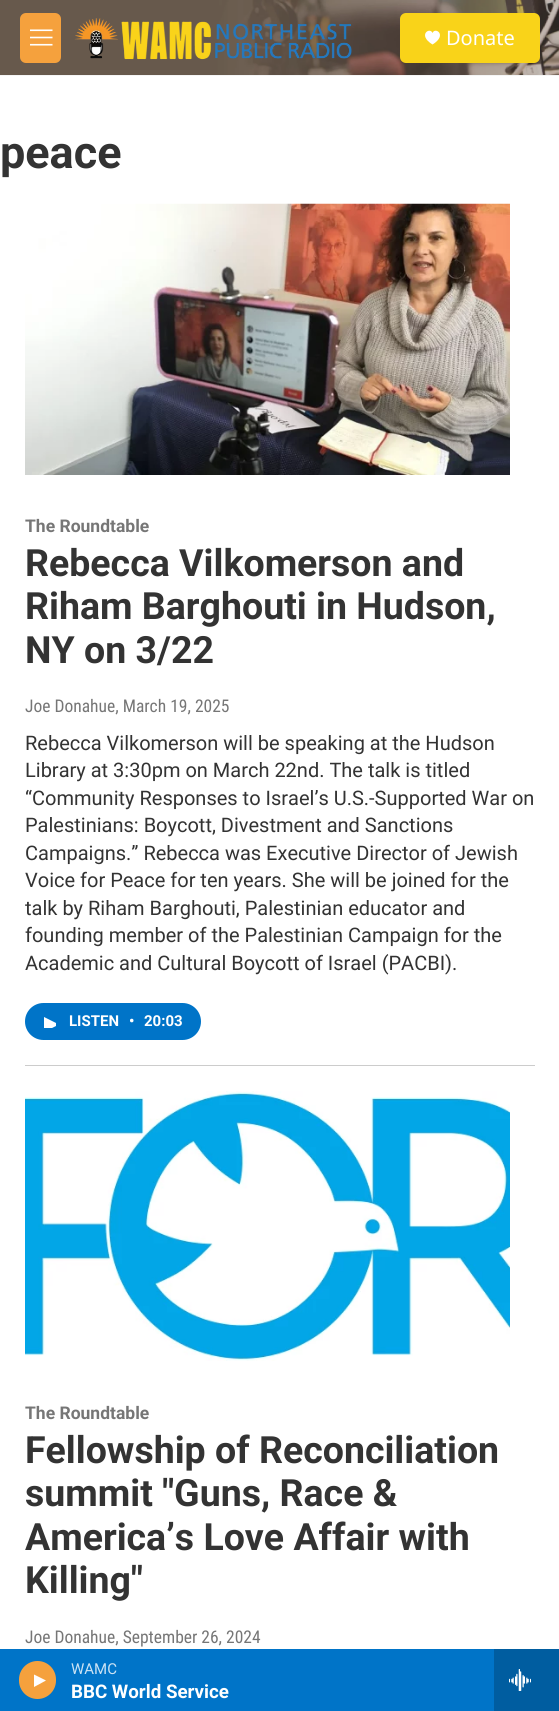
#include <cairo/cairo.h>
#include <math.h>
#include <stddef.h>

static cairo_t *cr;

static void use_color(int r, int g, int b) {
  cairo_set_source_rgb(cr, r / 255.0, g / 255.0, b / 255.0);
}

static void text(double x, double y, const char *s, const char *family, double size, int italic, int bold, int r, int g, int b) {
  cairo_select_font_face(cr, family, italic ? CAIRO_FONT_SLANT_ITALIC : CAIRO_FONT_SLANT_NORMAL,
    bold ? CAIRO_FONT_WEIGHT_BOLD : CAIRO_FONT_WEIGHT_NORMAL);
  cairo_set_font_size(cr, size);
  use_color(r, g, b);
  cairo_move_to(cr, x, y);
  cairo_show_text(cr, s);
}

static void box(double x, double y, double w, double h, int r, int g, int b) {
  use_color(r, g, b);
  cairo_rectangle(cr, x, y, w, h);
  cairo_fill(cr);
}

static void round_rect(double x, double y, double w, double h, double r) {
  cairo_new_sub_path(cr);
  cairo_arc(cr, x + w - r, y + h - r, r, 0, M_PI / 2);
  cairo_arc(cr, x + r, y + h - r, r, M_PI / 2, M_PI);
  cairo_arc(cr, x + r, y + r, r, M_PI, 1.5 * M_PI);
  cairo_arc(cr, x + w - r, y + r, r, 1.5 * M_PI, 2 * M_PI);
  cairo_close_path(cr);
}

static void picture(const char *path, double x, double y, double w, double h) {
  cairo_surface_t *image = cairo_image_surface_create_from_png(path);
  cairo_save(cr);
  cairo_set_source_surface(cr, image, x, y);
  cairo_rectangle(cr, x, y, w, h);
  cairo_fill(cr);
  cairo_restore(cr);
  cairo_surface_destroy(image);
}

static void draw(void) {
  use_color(255, 255, 255);
  cairo_paint(cr);
  box(0, 75, 559, 1, 245, 245, 245);
  picture("img_01.png", 0, 0, 559, 75);
  use_color(245, 161, 61);
  round_rect(20, 13, 41, 50, 6);
  cairo_fill(cr);
  picture("img_02.png", 30, 29, 23, 17);
  picture("img_03.png", 74, 18, 278, 42);
  use_color(249, 211, 25);
  round_rect(400, 13, 140, 50, 6);
  cairo_fill(cr);
  use_color(255, 255, 255);
  cairo_new_path(cr);
  cairo_move_to(cr, 432.5, 33);
  cairo_curve_to(cr, 430, 26.5, 417, 35, 432.5, 44.5);
  cairo_curve_to(cr, 448, 35, 435, 26.5, 432.5, 33);
  cairo_close_path(cr);
  cairo_fill(cr);
  box(0, 1649, 494, 62, 0, 116, 200);
  use_color(245, 161, 61);
  round_rect(19, 1661, 37, 38, 18.5);
  cairo_fill(cr);
  use_color(255, 255, 255);
  cairo_new_path(cr);
  cairo_move_to(cr, 34, 1674.5);
  cairo_line_to(cr, 46, 1680.5);
  cairo_line_to(cr, 34, 1687);
  cairo_close_path(cr);
  cairo_fill(cr);
  box(494, 1649, 65, 62, 0, 93, 160);
  picture("img_04.png", 509, 1669, 22, 22);
  box(25, 1065, 510, 1, 204, 204, 204);
  picture("img_05.png", 25, 203, 485, 272);
  use_color(0, 116, 200);
  round_rect(25, 1003, 176, 37, 18.5);
  cairo_fill(cr);
  cairo_save(cr);
  cairo_rectangle(cr, 44, 1015, 12, 13);
  cairo_clip(cr);
  use_color(255, 255, 255);
  cairo_new_path(cr);
  cairo_move_to(cr, 44, 1017);
  cairo_line_to(cr, 59, 1024.5);
  cairo_line_to(cr, 44, 1032);
  cairo_close_path(cr);
  cairo_fill(cr);
  cairo_restore(cr);
  picture("img_06.png", 25, 1091, 485, 270);
  text(446, 45, "Donate", "Noto Sans", 20, 0, 0, 255, 255, 255);
  text(71, 1674, "WAMC", "Roboto", 15, 0, 0, 204, 227, 244);
  text(71, 1698, "BBC World Service", "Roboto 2", 18.75, 0, 1, 255, 255, 255);
  text(0, 168, "peace", "Roboto", 45, 0, 1, 51, 51, 51);
  text(25, 532, "The Roundtable", "Roboto", 17.5, 0, 1, 118, 118, 118);
  text(25, 576, "Rebecca Vilkomerson and", "Roboto", 37.5, 0, 1, 51, 51, 51);
  text(25, 619, "Riham Barghouti in Hudson,", "Roboto", 37.5, 0, 1, 51, 51, 51);
  text(25, 663, "NY on 3/22", "Roboto", 37.5, 0, 1, 51, 51, 51);
  text(25, 712, "Joe Donahue, March 19, 2025", "Roboto Condensed", 17.5, 0, 0, 118, 118, 118);
  text(25, 750, "Rebecca Vilkomerson will be speaking at the Hudson", "Roboto", 20, 0, 0, 51, 51, 51);
  text(25, 777, "Library at 3:30pm on March 22nd. The talk is titled", "Roboto", 20, 0, 0, 51, 51, 51);
  text(25, 805, "“Community Responses to Israel’s U.S.-Supported War on", "Roboto", 20, 0, 0, 51, 51, 51);
  text(25, 832, "Palestinians: Boycott, Divestment and Sanctions", "Roboto", 20, 0, 0, 51, 51, 51);
  text(25, 860, "Campaigns.” Rebecca was Executive Director of Jewish", "Roboto", 20, 0, 0, 51, 51, 51);
  text(25, 887, "Voice for Peace for ten years. She will be joined for the", "Roboto", 20, 0, 0, 51, 51, 51);
  text(25, 915, "talk by Riham Barghouti, Palestinian educator and", "Roboto", 20, 0, 0, 51, 51, 51);
  text(25, 942, "founding member of the Palestinian Campaign for the", "Roboto", 20, 0, 0, 51, 51, 51);
  text(25, 970, "Academic and Cultural Boycott of Israel (PACBI).", "Roboto", 20, 0, 0, 51, 51, 51);
  text(69, 1026, "LISTEN", "Roboto 2", 15, 0, 1, 255, 255, 255);
  text(129, 1026, "•", "Roboto 2", 15, 0, 1, 255, 255, 255);
  text(144, 1026, "20:03", "Roboto 2", 15, 0, 1, 255, 255, 255);
  text(25, 1419, "The Roundtable", "Roboto", 17.5, 0, 1, 118, 118, 118);
  text(25, 1463, "Fellowship of Reconciliation", "Roboto", 37.5, 0, 1, 51, 51, 51);
  text(25, 1506, "summit \"Guns, Race &", "Roboto", 37.5, 0, 1, 51, 51, 51);
  text(25, 1550, "America’s Love Affair with", "Roboto", 37.5, 0, 1, 51, 51, 51);
  text(25, 1593, "Killing\"", "Roboto", 37.5, 0, 1, 51, 51, 51);
  text(25, 1643, "Joe Donahue, September 26, 2024", "Roboto Condensed", 17.5, 0, 0, 118, 118, 118);
}

int main(void) {
  cairo_surface_t *surface = cairo_image_surface_create(CAIRO_FORMAT_RGB24, 559, 1711);
  cr = cairo_create(surface);
  cairo_font_options_t *options = cairo_font_options_create();
  cairo_font_options_set_hint_metrics(options, CAIRO_HINT_METRICS_OFF);
  cairo_font_options_set_hint_style(options, CAIRO_HINT_STYLE_NONE);
  cairo_set_font_options(cr, options);
  cairo_set_miter_limit(cr, 4);
  draw();
  cairo_surface_write_to_png(surface, "out.png");
  cairo_font_options_destroy(options);
  cairo_destroy(cr);
  cairo_surface_destroy(surface);
  return 0;
}
